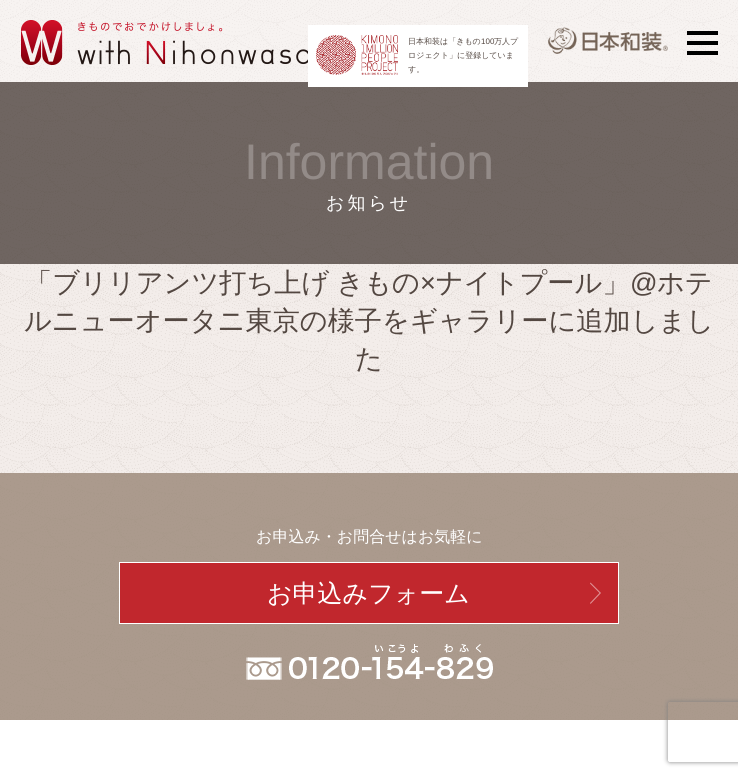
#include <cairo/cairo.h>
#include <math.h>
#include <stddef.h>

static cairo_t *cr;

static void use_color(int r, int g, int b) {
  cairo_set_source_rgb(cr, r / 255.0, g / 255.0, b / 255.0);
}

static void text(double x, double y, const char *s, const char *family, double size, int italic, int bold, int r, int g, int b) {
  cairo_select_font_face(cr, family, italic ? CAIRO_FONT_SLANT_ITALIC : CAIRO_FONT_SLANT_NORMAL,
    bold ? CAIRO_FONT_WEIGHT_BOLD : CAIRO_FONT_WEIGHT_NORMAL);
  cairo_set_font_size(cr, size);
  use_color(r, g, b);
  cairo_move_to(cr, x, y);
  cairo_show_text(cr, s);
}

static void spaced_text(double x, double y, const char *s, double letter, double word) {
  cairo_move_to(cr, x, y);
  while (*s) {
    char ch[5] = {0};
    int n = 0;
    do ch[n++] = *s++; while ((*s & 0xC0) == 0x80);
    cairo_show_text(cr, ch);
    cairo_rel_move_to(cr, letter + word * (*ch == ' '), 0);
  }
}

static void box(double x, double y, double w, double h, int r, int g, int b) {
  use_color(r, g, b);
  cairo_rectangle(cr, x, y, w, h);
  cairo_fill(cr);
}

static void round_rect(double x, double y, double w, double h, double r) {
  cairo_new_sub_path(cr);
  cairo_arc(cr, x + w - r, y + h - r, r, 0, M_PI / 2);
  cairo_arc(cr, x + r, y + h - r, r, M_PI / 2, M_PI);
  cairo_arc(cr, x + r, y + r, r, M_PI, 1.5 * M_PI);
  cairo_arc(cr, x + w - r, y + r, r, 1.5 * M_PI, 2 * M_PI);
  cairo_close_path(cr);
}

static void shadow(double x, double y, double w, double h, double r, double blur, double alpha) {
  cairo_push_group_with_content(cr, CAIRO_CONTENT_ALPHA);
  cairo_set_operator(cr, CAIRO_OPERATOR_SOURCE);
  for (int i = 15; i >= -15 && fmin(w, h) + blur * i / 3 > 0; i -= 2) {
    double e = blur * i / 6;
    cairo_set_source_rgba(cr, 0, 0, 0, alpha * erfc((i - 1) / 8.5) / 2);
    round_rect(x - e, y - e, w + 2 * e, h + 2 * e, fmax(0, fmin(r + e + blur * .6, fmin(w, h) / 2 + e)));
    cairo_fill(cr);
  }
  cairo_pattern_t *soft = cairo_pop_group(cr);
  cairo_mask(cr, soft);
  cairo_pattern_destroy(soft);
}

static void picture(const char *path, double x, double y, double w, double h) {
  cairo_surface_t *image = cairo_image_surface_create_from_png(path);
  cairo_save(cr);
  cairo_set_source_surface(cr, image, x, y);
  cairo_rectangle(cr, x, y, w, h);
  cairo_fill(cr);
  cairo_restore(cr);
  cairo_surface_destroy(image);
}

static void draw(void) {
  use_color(255, 255, 255);
  cairo_paint(cr);
  picture("img_01.png", 0, 0, 738, 720);
  cairo_set_source_rgba(cr, 1, 1, 1, 0.35);
  cairo_rectangle(cr, 0, 0, 738, 82);
  cairo_fill(cr);
  picture("img_02.png", 548, 27, 120, 27);
  picture("img_03.png", 21, 20, 287, 45);
  cairo_set_source_rgba(cr, 0.263, 0.22, 0.2, 0.75);
  cairo_rectangle(cr, 0, 82, 738, 182);
  cairo_fill(cr);
  box(308, 25, 220, 62, 255, 255, 255);
  picture("img_04.png", 316, 35, 82, 40);
  box(687, 31, 31, 4, 0, 0, 0);
  box(687, 41, 31, 4, 0, 0, 0);
  box(687, 51, 31, 4, 0, 0, 0);
  cairo_set_source_rgba(cr, 0.6, 0.525, 0.459, 0.8);
  cairo_rectangle(cr, 0, 473, 738, 247);
  cairo_fill(cr);
  use_color(193, 39, 45);
  cairo_rectangle(cr, 119.5, 562.5, 499, 61);
  cairo_fill_preserve(cr);
  use_color(255, 255, 255);
  cairo_set_line_width(cr, 1);
  cairo_stroke(cr);
  use_color(224, 147, 150);
  cairo_new_path(cr);
  cairo_move_to(cr, 590.5, 582.5);
  cairo_line_to(cr, 601, 593);
  cairo_line_to(cr, 599.5, 593);
  cairo_line_to(cr, 590, 583.5);
  cairo_close_path(cr);
  cairo_move_to(cr, 601, 593);
  cairo_line_to(cr, 590.5, 604);
  cairo_line_to(cr, 590, 603);
  cairo_line_to(cr, 599.5, 593);
  cairo_close_path(cr);
  cairo_fill(cr);
  picture("img_05.png", 246, 644, 247, 36);
  cairo_save(cr);
  cairo_set_fill_rule(cr, CAIRO_FILL_RULE_EVEN_ODD);
  cairo_new_path(cr);
  cairo_move_to(cr, 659, 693);
  cairo_line_to(cr, 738, 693);
  cairo_line_to(cr, 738, 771);
  cairo_line_to(cr, 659, 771);
  cairo_close_path(cr);
  cairo_move_to(cr, 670, 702);
  cairo_line_to(cr, 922, 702);
  cairo_curve_to(cr, 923, 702, 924, 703, 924, 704);
  cairo_line_to(cr, 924, 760);
  cairo_curve_to(cr, 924, 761, 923, 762, 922, 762);
  cairo_line_to(cr, 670, 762);
  cairo_curve_to(cr, 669, 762, 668, 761, 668, 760);
  cairo_line_to(cr, 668, 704);
  cairo_curve_to(cr, 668, 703, 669, 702, 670, 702);
  cairo_close_path(cr);
  cairo_clip(cr);
  use_color(128, 128, 128);
  shadow(668, 702, 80, 60, 2, 2.5, 1);
  cairo_restore(cr);
  text(408, 44, "日本和装は「きもの", "WenQuanYi Zen Hei Medium", 8, 0, 0, 83, 71, 65);
  text(481, 44, "100", "Liberation Sans", 8, 0, 0, 83, 71, 65);
  text(494, 44, "万人プ", "WenQuanYi Zen Hei Medium", 8, 0, 0, 83, 71, 65);
  text(408, 58, "ロジェクト」に登録していま", "WenQuanYi Zen Hei Medium", 8, 0, 0, 83, 71, 65);
  text(408, 72, "す。", "WenQuanYi Zen Hei Medium", 8, 0, 0, 83, 71, 65);
  text(244, 179, "Information", "Liberation Sans", 50, 0, 0, 147, 139, 136);
  cairo_select_font_face(cr, "WenQuanYi Zen Hei Medium", CAIRO_FONT_SLANT_NORMAL, CAIRO_FONT_WEIGHT_NORMAL);
  cairo_set_font_size(cr, 18);
  use_color(255, 255, 255);
  spaced_text(326, 209, "お知らせ", 3, 0);
  cairo_set_font_size(cr, 27.2);
  use_color(83, 71, 65);
  spaced_text(25, 292, "「ブリリアンツ打ち上げ きもの", 0, -1);
  text(420, 292, "×", "Liberation Sans", 27.2, 0, 0, 83, 71, 65);
  text(436, 292, "ナイトプール」", "WenQuanYi Zen Hei Medium", 27.2, 0, 0, 83, 71, 65);
  text(630, 292, "@", "Liberation Sans", 27.2, 0, 0, 83, 71, 65);
  text(657, 292, "ホテ", "WenQuanYi Zen Hei Medium", 27.2, 0, 0, 83, 71, 65);
  text(24, 330, "ルニューオータニ東京の様子をギャラリーに追加しまし", "WenQuanYi Zen Hei Medium", 27.2, 0, 0, 83, 71, 65);
  text(355, 368, "た", "WenQuanYi Zen Hei Medium", 27.2, 0, 0, 83, 71, 65);
  text(256, 542, "お申込み・お問合せはお気軽に", "WenQuanYi Zen Hei Medium", 16, 0, 0, 255, 255, 255);
  text(267, 602, "お申込みフォーム", "WenQuanYi Zen Hei Medium", 25, 0, 0, 255, 255, 255);
}

int main(void) {
  cairo_surface_t *surface = cairo_image_surface_create(CAIRO_FORMAT_RGB24, 738, 776);
  cr = cairo_create(surface);
  cairo_font_options_t *options = cairo_font_options_create();
  cairo_font_options_set_hint_metrics(options, CAIRO_HINT_METRICS_OFF);
  cairo_font_options_set_hint_style(options, CAIRO_HINT_STYLE_NONE);
  cairo_set_font_options(cr, options);
  cairo_set_miter_limit(cr, 4);
  draw();
  cairo_surface_write_to_png(surface, "out.png");
  cairo_font_options_destroy(options);
  cairo_destroy(cr);
  cairo_surface_destroy(surface);
  return 0;
}
